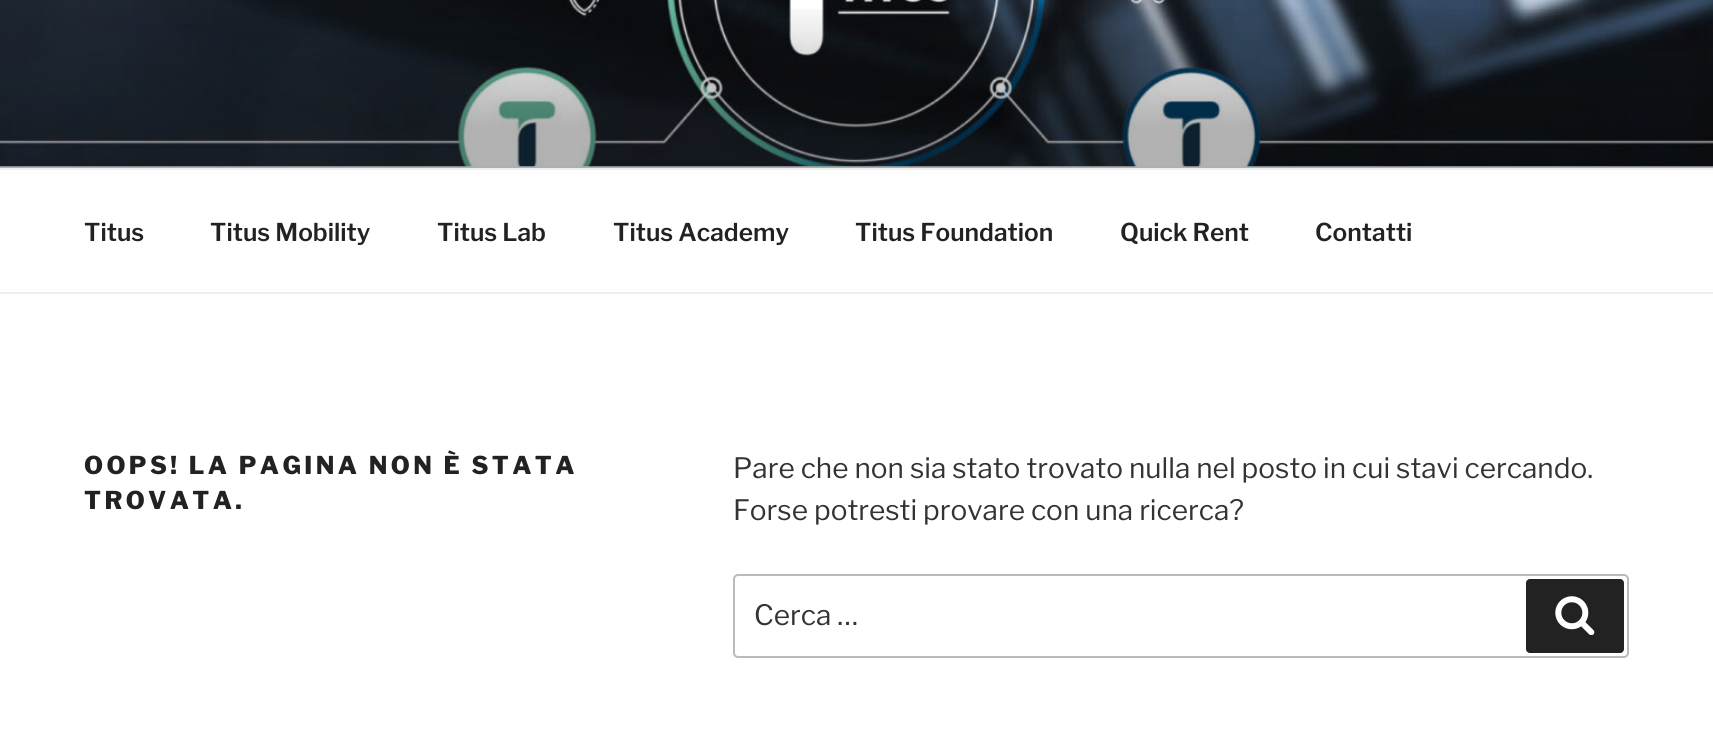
#include <cairo/cairo.h>
#include <math.h>
#include <stddef.h>

static cairo_t *cr;

static void use_color(int r, int g, int b) {
  cairo_set_source_rgb(cr, r / 255.0, g / 255.0, b / 255.0);
}

static void text(double x, double y, const char *s, const char *family, double size, int italic, int bold, int r, int g, int b) {
  cairo_select_font_face(cr, family, italic ? CAIRO_FONT_SLANT_ITALIC : CAIRO_FONT_SLANT_NORMAL,
    bold ? CAIRO_FONT_WEIGHT_BOLD : CAIRO_FONT_WEIGHT_NORMAL);
  cairo_set_font_size(cr, size);
  use_color(r, g, b);
  cairo_move_to(cr, x, y);
  cairo_show_text(cr, s);
}

static void spaced_text(double x, double y, const char *s, double letter, double word) {
  cairo_move_to(cr, x, y);
  while (*s) {
    char ch[5] = {0};
    int n = 0;
    do ch[n++] = *s++; while ((*s & 0xC0) == 0x80);
    cairo_show_text(cr, ch);
    cairo_rel_move_to(cr, letter + word * (*ch == ' '), 0);
  }
}

static void box(double x, double y, double w, double h, int r, int g, int b) {
  use_color(r, g, b);
  cairo_rectangle(cr, x, y, w, h);
  cairo_fill(cr);
}

static void round_rect(double x, double y, double w, double h, double r) {
  cairo_new_sub_path(cr);
  cairo_arc(cr, x + w - r, y + h - r, r, 0, M_PI / 2);
  cairo_arc(cr, x + r, y + h - r, r, M_PI / 2, M_PI);
  cairo_arc(cr, x + r, y + r, r, M_PI, 1.5 * M_PI);
  cairo_arc(cr, x + w - r, y + r, r, 1.5 * M_PI, 2 * M_PI);
  cairo_close_path(cr);
}

static void picture(const char *path, double x, double y, double w, double h) {
  cairo_surface_t *image = cairo_image_surface_create_from_png(path);
  cairo_save(cr);
  cairo_set_source_surface(cr, image, x, y);
  cairo_rectangle(cr, x, y, w, h);
  cairo_fill(cr);
  cairo_restore(cr);
  cairo_surface_destroy(image);
}

static void draw(void) {
  cairo_pattern_t *gradient;
  use_color(255, 255, 255);
  cairo_paint(cr);
  box(0, 166, 1713, 2, 250, 250, 250);
  picture("img_01.png", 0, 0, 1713, 167);
  gradient = cairo_pattern_create_linear(857, 0, 857, 168);
  cairo_pattern_add_color_stop_rgba(gradient, 0, 0, 0, 0, 0);
  cairo_pattern_add_color_stop_rgba(gradient, 0.75, 0, 0, 0, 0.3);
  cairo_pattern_add_color_stop_rgba(gradient, 1, 0, 0, 0, 0.3);
  cairo_set_source(cr, gradient);
  cairo_pattern_destroy(gradient);
  cairo_rectangle(cr, 0, 9, 1713, 159);
  cairo_fill(cr);
  box(0, 168, 1713, 2, 238, 238, 238);
  box(0, 292, 1713, 2, 238, 238, 238);
  round_rect(734, 575, 894, 82, 4);
  use_color(187, 187, 187);
  cairo_stroke(cr);
  use_color(34, 34, 34);
  round_rect(1526, 579, 98, 74, 4);
  cairo_fill(cr);
  picture("img_02.png", 1555, 596, 40, 39);
  text(84, 241, "Titus", "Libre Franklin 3 Thin", 24.5, 0, 0, 34, 34, 34);
  text(210, 241, "Titus Mobility", "Libre Franklin 3 Thin", 24.5, 0, 0, 34, 34, 34);
  text(437, 241, "Titus Lab", "Libre Franklin 3 Thin", 24.5, 0, 0, 34, 34, 34);
  text(613, 241, "Titus Academy", "Libre Franklin 3 Thin", 24.5, 0, 0, 34, 34, 34);
  text(855, 241, "Titus Foundation", "Libre Franklin 3 Thin", 24.5, 0, 0, 34, 34, 34);
  text(1120, 241, "Quick Rent", "Libre Franklin 3 Thin", 24.5, 0, 0, 34, 34, 34);
  text(1315, 241, "Contatti", "Libre Franklin 3 Thin", 24.5, 0, 0, 34, 34, 34);
  cairo_select_font_face(cr, "Libre Franklin Thin", CAIRO_FONT_SLANT_NORMAL, CAIRO_FONT_WEIGHT_NORMAL);
  spaced_text(84, 474, "OOPS! LA PAGINA NON È STATA", 3.4, 0);
  spaced_text(84, 509, "TROVATA.", 3.4, 0);
  text(733, 478, "Pare che non sia stato trovato nulla nel posto in cui stavi cercando.", "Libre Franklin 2 Thin", 28, 0, 0, 51, 51, 51);
  text(733, 520, "Forse potresti provare con una ricerca?", "Libre Franklin 2 Thin", 28, 0, 0, 51, 51, 51);
  text(754, 625, "Cerca …", "Libre Franklin 2 Thin", 28, 0, 0, 51, 51, 51);
}

int main(void) {
  cairo_surface_t *surface = cairo_image_surface_create(CAIRO_FORMAT_RGB24, 1713, 740);
  cr = cairo_create(surface);
  cairo_font_options_t *options = cairo_font_options_create();
  cairo_font_options_set_hint_metrics(options, CAIRO_HINT_METRICS_OFF);
  cairo_font_options_set_hint_style(options, CAIRO_HINT_STYLE_NONE);
  cairo_set_font_options(cr, options);
  cairo_set_miter_limit(cr, 4);
  draw();
  cairo_surface_write_to_png(surface, "out.png");
  cairo_font_options_destroy(options);
  cairo_destroy(cr);
  cairo_surface_destroy(surface);
  return 0;
}
